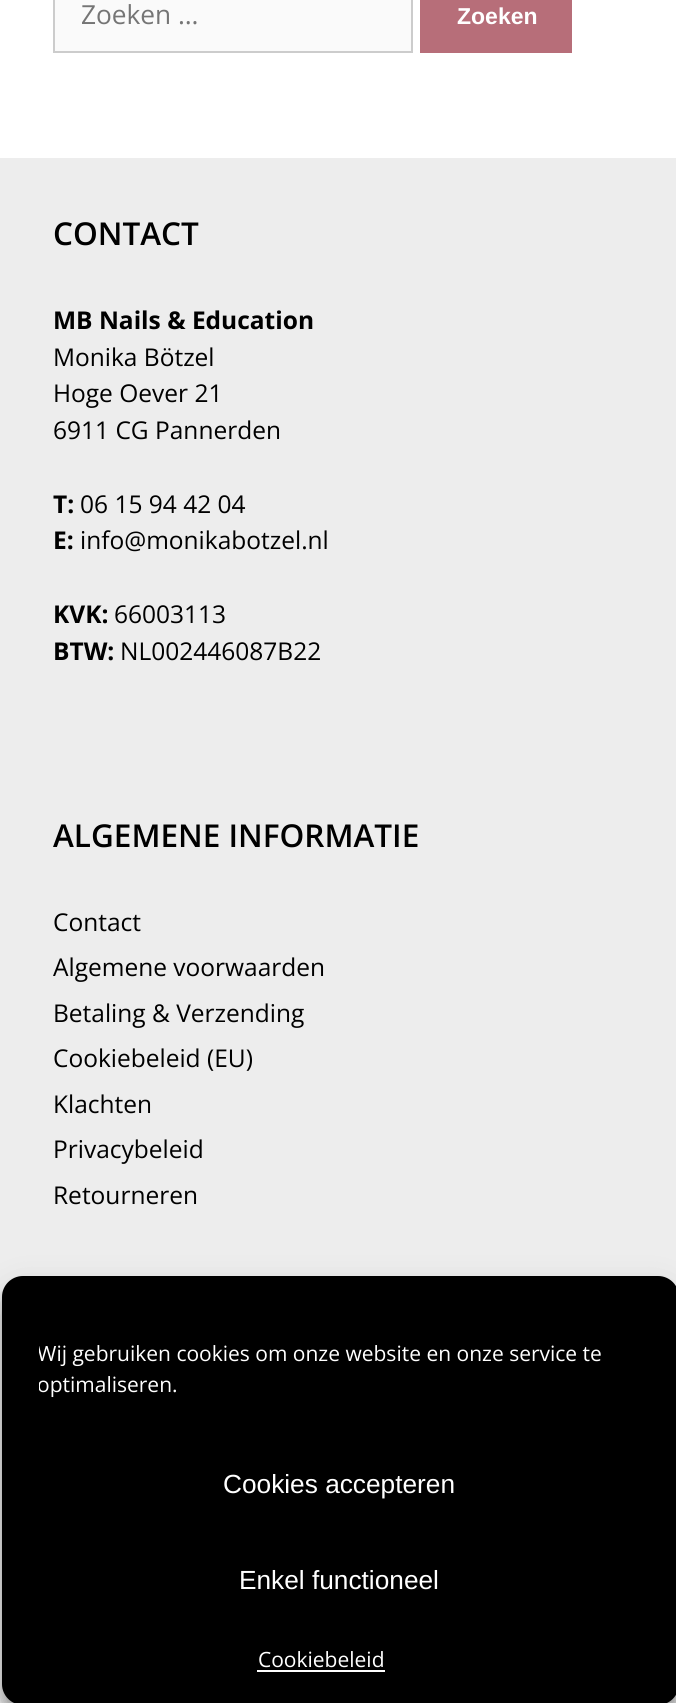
#include <cairo/cairo.h>
#include <math.h>
#include <stddef.h>

static cairo_t *cr;

static void use_color(int r, int g, int b) {
  cairo_set_source_rgb(cr, r / 255.0, g / 255.0, b / 255.0);
}

static void text(double x, double y, const char *s, const char *family, double size, int italic, int bold, int r, int g, int b) {
  cairo_select_font_face(cr, family, italic ? CAIRO_FONT_SLANT_ITALIC : CAIRO_FONT_SLANT_NORMAL,
    bold ? CAIRO_FONT_WEIGHT_BOLD : CAIRO_FONT_WEIGHT_NORMAL);
  cairo_set_font_size(cr, size);
  use_color(r, g, b);
  cairo_move_to(cr, x, y);
  cairo_show_text(cr, s);
}

static void box(double x, double y, double w, double h, int r, int g, int b) {
  use_color(r, g, b);
  cairo_rectangle(cr, x, y, w, h);
  cairo_fill(cr);
}

static void round_rect(double x, double y, double w, double h, double r) {
  cairo_new_sub_path(cr);
  cairo_arc(cr, x + w - r, y + h - r, r, 0, M_PI / 2);
  cairo_arc(cr, x + r, y + h - r, r, M_PI / 2, M_PI);
  cairo_arc(cr, x + r, y + r, r, M_PI, 1.5 * M_PI);
  cairo_arc(cr, x + w - r, y + r, r, 1.5 * M_PI, 2 * M_PI);
  cairo_close_path(cr);
}

static void shadow(double x, double y, double w, double h, double r, double blur, double alpha) {
  cairo_push_group_with_content(cr, CAIRO_CONTENT_ALPHA);
  cairo_set_operator(cr, CAIRO_OPERATOR_SOURCE);
  for (int i = 15; i >= -15 && fmin(w, h) + blur * i / 3 > 0; i -= 2) {
    double e = blur * i / 6;
    cairo_set_source_rgba(cr, 0, 0, 0, alpha * erfc((i - 1) / 8.5) / 2);
    round_rect(x - e, y - e, w + 2 * e, h + 2 * e, fmax(0, fmin(r + e + blur * .6, fmin(w, h) / 2 + e)));
    cairo_fill(cr);
  }
  cairo_pattern_t *soft = cairo_pop_group(cr);
  cairo_mask(cr, soft);
  cairo_pattern_destroy(soft);
}

static void draw(void) {
  use_color(255, 255, 255);
  cairo_paint(cr);
  use_color(250, 250, 250);
  cairo_rectangle(cr, 54, -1, 358, 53);
  cairo_fill_preserve(cr);
  use_color(204, 204, 204);
  cairo_stroke(cr);
  box(420, 0, 152, 53, 183, 110, 121);
  box(0, 158, 676, 1545, 237, 237, 237);
  use_color(0, 0, 0);
  shadow(2, 1286, 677, 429, 21, 5, 0.23);
  shadow(2, 1293, 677, 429, 21, 17.5, 0.19);
  use_color(0, 0, 0);
  round_rect(3, 1277, 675, 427, 20);
  cairo_fill_preserve(cr);
  cairo_stroke(cr);
  box(257, 1670, 128, 2, 255, 255, 255);
  text(81, 24, "Zoeken …", "Open Sans", 26.25, 0, 0, 117, 117, 117);
  text(457, 24, "Zoeken", "Liberation Sans", 23, 0, 1, 255, 255, 255);
  text(53, 245, "CONTACT", "Open Sans SemiBold", 31.5, 0, 0, 0, 0, 0);
  text(53, 329, "MB Nails & Education", "Open Sans", 24.5, 0, 1, 0, 0, 0);
  text(53, 366, "Monika Bötzel", "Open Sans", 24.5, 0, 0, 0, 0, 0);
  text(53, 402, "Hoge Oever 21", "Open Sans", 24.5, 0, 0, 0, 0, 0);
  text(53, 439, "6911 CG Pannerden", "Open Sans", 24.5, 0, 0, 0, 0, 0);
  text(53, 513, "T:", "Open Sans", 24.5, 0, 1, 0, 0, 0);
  text(80, 513, "06 15 94 42 04", "Open Sans", 24.5, 0, 0, 0, 0, 0);
  text(53, 549, "E:", "Open Sans", 24.5, 0, 1, 0, 0, 0);
  text(80, 549, "info@monikabotzel.nl", "Open Sans", 24.5, 0, 0, 0, 0, 0);
  text(53, 623, "KVK:", "Open Sans", 24.5, 0, 1, 0, 0, 0);
  text(114, 623, "66003113", "Open Sans", 24.5, 0, 0, 0, 0, 0);
  text(53, 660, "BTW:", "Open Sans", 24.5, 0, 1, 0, 0, 0);
  text(120, 660, "NL002446087B22", "Open Sans", 24.5, 0, 0, 0, 0, 0);
  text(53, 847, "ALGEMENE INFORMATIE", "Open Sans SemiBold", 31.5, 0, 0, 0, 0, 0);
  text(53, 931, "Contact", "Open Sans", 24.5, 0, 0, 0, 0, 0);
  text(53, 976, "Algemene voorwaarden", "Open Sans", 24.5, 0, 0, 0, 0, 0);
  text(53, 1022, "Betaling & Verzending", "Open Sans", 24.5, 0, 0, 0, 0, 0);
  text(53, 1067, "Cookiebeleid (EU)", "Open Sans", 24.5, 0, 0, 0, 0, 0);
  text(53, 1113, "Klachten", "Open Sans", 24.5, 0, 0, 0, 0, 0);
  text(53, 1158, "Privacybeleid", "Open Sans", 24.5, 0, 0, 0, 0, 0);
  text(53, 1204, "Retourneren", "Open Sans", 24.5, 0, 0, 0, 0, 0);
  cairo_save(cr);
  cairo_rectangle(cr, 39, 1339, 603, 72);
  cairo_clip(cr);
  text(37, 1361, "Wij gebruiken cookies om onze website en onze service te", "Open Sans", 21, 0, 0, 255, 255, 255);
  text(37, 1392, "optimaliseren.", "Open Sans", 21, 0, 0, 255, 255, 255);
  cairo_restore(cr);
  text(223, 1493, "Cookies accepteren", "Liberation Sans", 26.25, 0, 0, 255, 255, 255);
  text(239, 1589, "Enkel functioneel", "Liberation Sans", 26.25, 0, 0, 255, 255, 255);
  text(258, 1667, "Cookiebeleid", "Open Sans", 21, 0, 0, 255, 255, 255);
}

int main(void) {
  cairo_surface_t *surface = cairo_image_surface_create(CAIRO_FORMAT_RGB24, 676, 1703);
  cr = cairo_create(surface);
  cairo_font_options_t *options = cairo_font_options_create();
  cairo_font_options_set_hint_metrics(options, CAIRO_HINT_METRICS_OFF);
  cairo_font_options_set_hint_style(options, CAIRO_HINT_STYLE_NONE);
  cairo_set_font_options(cr, options);
  cairo_set_miter_limit(cr, 4);
  draw();
  cairo_surface_write_to_png(surface, "out.png");
  cairo_font_options_destroy(options);
  cairo_destroy(cr);
  cairo_surface_destroy(surface);
  return 0;
}
